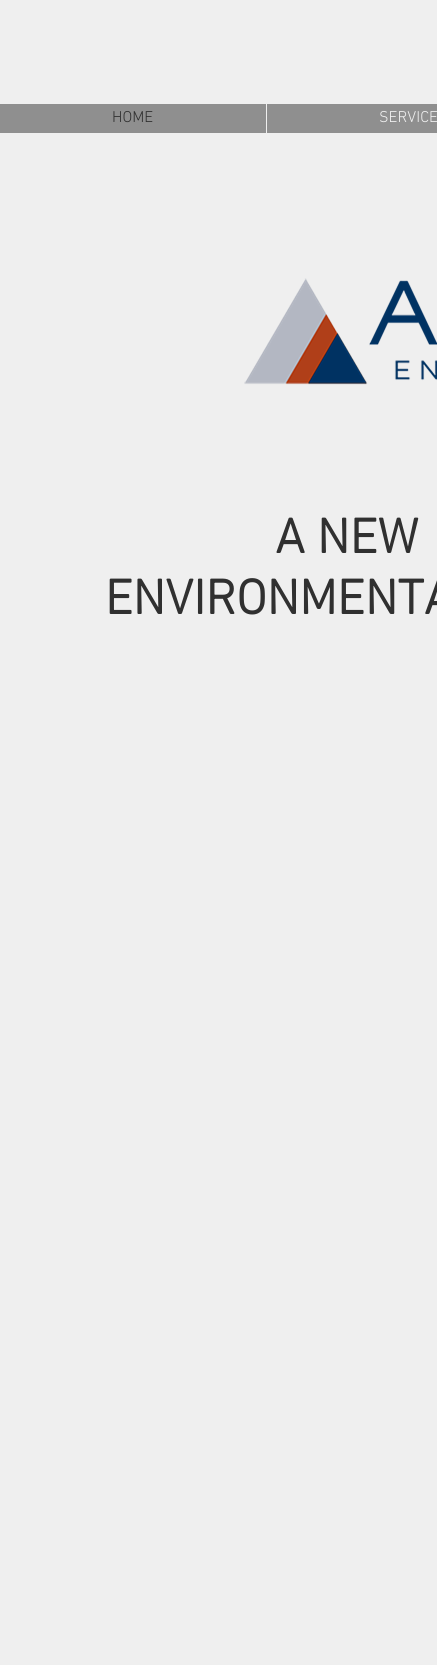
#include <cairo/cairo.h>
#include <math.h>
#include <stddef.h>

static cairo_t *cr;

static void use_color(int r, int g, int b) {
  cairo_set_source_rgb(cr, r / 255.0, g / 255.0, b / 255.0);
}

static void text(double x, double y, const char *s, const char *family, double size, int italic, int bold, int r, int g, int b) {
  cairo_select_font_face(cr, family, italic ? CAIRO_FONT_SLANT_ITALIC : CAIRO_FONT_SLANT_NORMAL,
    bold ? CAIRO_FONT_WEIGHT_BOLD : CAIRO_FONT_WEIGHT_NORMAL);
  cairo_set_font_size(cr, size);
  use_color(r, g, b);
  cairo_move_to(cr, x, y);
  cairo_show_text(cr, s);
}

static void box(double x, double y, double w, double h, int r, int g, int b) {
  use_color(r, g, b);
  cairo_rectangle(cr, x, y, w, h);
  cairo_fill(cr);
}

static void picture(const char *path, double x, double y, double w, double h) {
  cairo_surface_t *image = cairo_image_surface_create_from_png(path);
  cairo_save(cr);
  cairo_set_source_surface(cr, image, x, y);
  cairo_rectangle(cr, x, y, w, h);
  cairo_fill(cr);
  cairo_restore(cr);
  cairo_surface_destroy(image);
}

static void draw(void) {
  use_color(239, 239, 239);
  cairo_paint(cr);
  box(0, 104, 437, 29, 143, 143, 143);
  box(266, 104, 1, 29, 239, 239, 239);
  picture("img_01.png", 244, 278, 193, 107);
  text(112, 122, "HOME", "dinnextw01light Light", 16, 0, 0, 48, 48, 48);
  text(379, 122, "SERVICE", "dinnextw01light Light", 16, 0, 0, 239, 239, 239);
  text(275, 553, "A NEW", "dinnextw01light", 50, 0, 1, 48, 48, 48);
  text(105, 614, "ENVIRONMENTA", "dinnextw01light", 50, 0, 1, 48, 48, 48);
}

int main(void) {
  cairo_surface_t *surface = cairo_image_surface_create(CAIRO_FORMAT_RGB24, 437, 1665);
  cr = cairo_create(surface);
  cairo_font_options_t *options = cairo_font_options_create();
  cairo_font_options_set_hint_metrics(options, CAIRO_HINT_METRICS_OFF);
  cairo_font_options_set_hint_style(options, CAIRO_HINT_STYLE_NONE);
  cairo_set_font_options(cr, options);
  cairo_set_miter_limit(cr, 4);
  draw();
  cairo_surface_write_to_png(surface, "out.png");
  cairo_font_options_destroy(options);
  cairo_destroy(cr);
  cairo_surface_destroy(surface);
  return 0;
}
